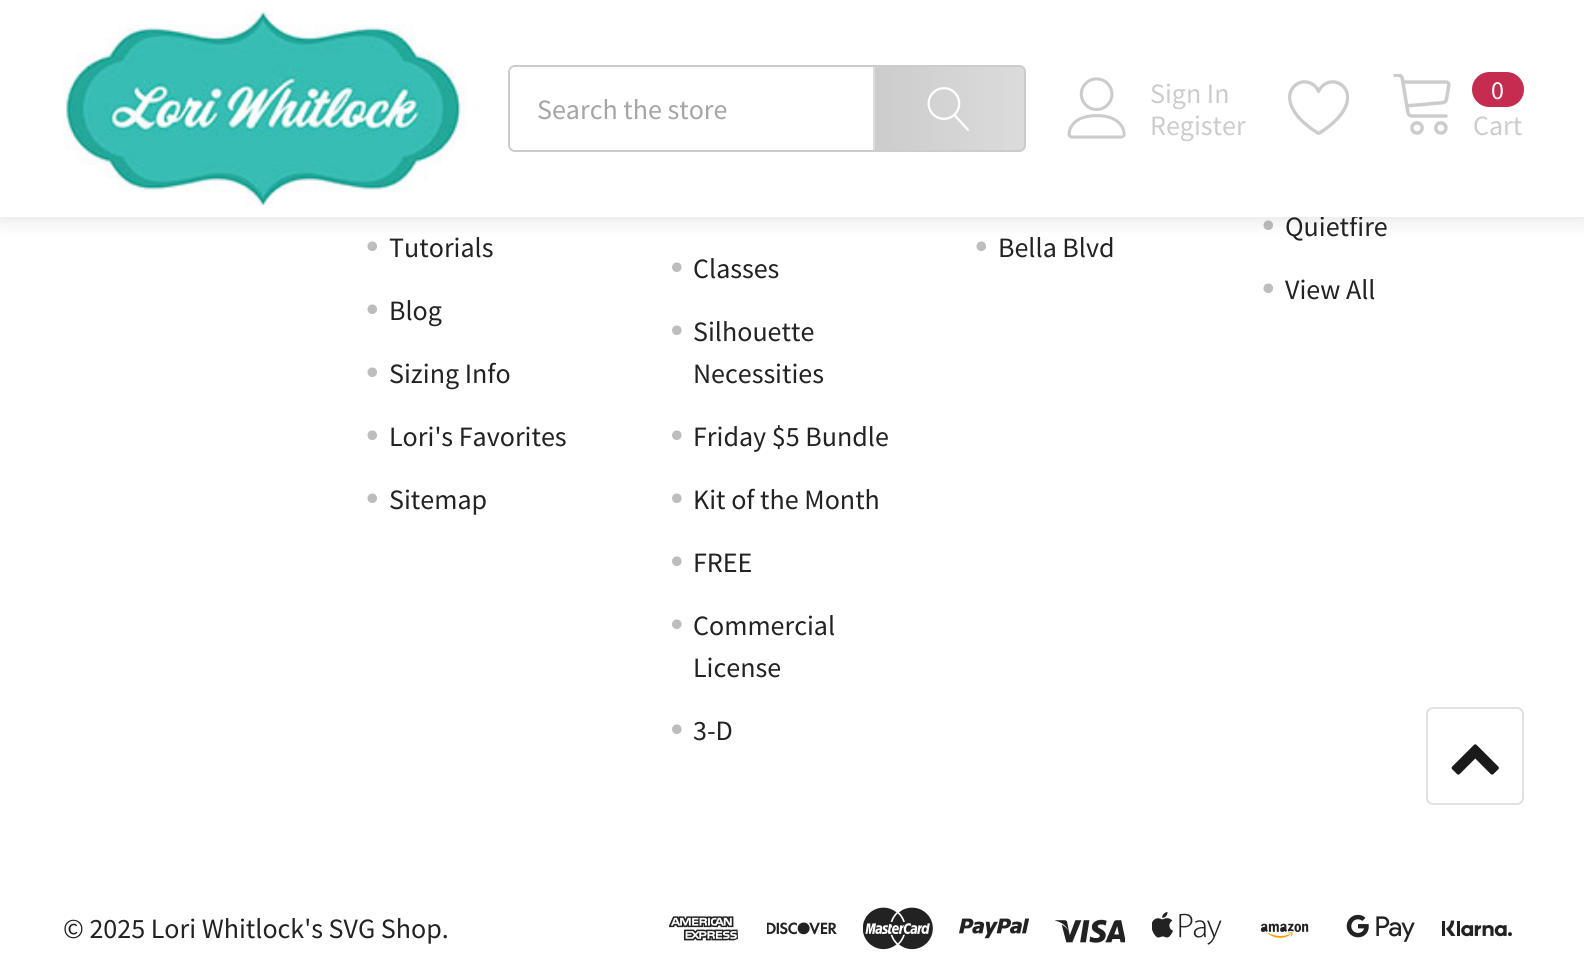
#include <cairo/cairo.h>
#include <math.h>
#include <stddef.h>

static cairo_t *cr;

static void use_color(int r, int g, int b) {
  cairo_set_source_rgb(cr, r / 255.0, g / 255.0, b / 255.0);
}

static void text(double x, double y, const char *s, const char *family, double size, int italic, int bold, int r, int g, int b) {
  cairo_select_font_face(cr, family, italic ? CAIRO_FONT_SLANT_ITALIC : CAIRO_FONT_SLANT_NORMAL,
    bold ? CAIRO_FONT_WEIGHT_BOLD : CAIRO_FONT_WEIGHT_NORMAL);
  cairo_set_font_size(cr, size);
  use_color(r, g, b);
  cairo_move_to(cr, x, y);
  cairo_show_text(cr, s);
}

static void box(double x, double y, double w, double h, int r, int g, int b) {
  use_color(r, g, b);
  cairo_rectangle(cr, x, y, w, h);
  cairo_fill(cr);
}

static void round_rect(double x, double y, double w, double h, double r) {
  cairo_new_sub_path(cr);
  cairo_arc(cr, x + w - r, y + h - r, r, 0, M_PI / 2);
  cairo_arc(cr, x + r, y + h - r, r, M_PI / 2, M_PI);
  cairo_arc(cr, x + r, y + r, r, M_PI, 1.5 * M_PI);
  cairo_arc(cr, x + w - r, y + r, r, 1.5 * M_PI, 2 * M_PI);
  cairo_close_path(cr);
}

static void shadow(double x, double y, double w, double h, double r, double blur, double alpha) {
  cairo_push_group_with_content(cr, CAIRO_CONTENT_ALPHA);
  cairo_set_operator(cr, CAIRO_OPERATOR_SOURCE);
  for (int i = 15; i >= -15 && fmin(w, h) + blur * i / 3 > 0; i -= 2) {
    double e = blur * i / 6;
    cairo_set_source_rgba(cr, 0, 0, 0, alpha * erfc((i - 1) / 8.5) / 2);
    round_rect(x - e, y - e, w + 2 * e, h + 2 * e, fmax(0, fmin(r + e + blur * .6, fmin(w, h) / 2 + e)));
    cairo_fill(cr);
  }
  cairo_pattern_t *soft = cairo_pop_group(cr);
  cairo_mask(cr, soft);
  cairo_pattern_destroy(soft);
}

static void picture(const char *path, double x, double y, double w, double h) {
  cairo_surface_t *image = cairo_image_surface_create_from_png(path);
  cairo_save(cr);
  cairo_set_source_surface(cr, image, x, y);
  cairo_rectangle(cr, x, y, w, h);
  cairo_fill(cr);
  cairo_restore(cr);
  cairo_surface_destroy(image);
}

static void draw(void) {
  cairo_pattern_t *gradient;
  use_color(255, 255, 255);
  cairo_paint(cr);
  picture("img_06.png", 367, 241, 10, 10);
  picture("img_06.png", 1263, 220, 10, 10);
  picture("img_06.png", 976, 241, 10, 10);
  use_color(0, 0, 0);
  shadow(0, 4, 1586, 217, 0, 9, 0.1);
  picture("img_06.png", 367, 304, 10, 10);
  picture("img_06.png", 367, 367, 10, 10);
  picture("img_06.png", 367, 430, 10, 10);
  picture("img_06.png", 367, 493, 10, 10);
  picture("img_07.png", 672, 262, 10, 10);
  picture("img_07.png", 672, 325, 10, 10);
  picture("img_07.png", 672, 430, 10, 10);
  picture("img_07.png", 672, 493, 10, 10);
  picture("img_07.png", 672, 556, 10, 10);
  picture("img_07.png", 672, 619, 10, 10);
  picture("img_07.png", 672, 724, 10, 10);
  picture("img_06.png", 1263, 283, 10, 10);
  picture("img_08.png", 669, 916, 69, 25);
  picture("img_09.png", 767, 922, 70, 13);
  picture("img_10.png", 863, 907, 70, 43);
  picture("img_11.png", 959, 918, 70, 21);
  picture("img_12.png", 1055, 919, 70, 24);
  picture("img_13.png", 1152, 912, 70, 33);
  picture("img_14.png", 1260, 923, 49, 15);
  picture("img_15.png", 1346, 914, 69, 28);
  picture("img_16.png", 1442, 920, 70, 17);
  round_rect(1427, 708, 96, 96, 6);
  use_color(224, 225, 228);
  cairo_stroke(cr);
  picture("img_17.png", 1451, 744, 48, 31);
  text(389, 257, "Tutorials", "Source Sans Pro", 28, 0, 0, 34, 34, 34);
  text(389, 320, "Blog", "Source Sans Pro", 28, 0, 0, 34, 34, 34);
  text(389, 383, "Sizing Info", "Source Sans Pro", 28, 0, 0, 34, 34, 34);
  text(389, 446, "Lori's Favorites", "Source Sans Pro", 28, 0, 0, 34, 34, 34);
  text(389, 509, "Sitemap", "Source Sans Pro", 28, 0, 0, 34, 34, 34);
  text(693, 278, "Classes", "Source Sans Pro", 28, 0, 0, 34, 34, 34);
  text(693, 341, "Silhouette", "Source Sans Pro", 28, 0, 0, 34, 34, 34);
  text(693, 383, "Necessities", "Source Sans Pro", 28, 0, 0, 34, 34, 34);
  text(693, 446, "Friday $5 Bundle", "Source Sans Pro", 28, 0, 0, 34, 34, 34);
  text(693, 509, "Kit of the Month", "Source Sans Pro", 28, 0, 0, 34, 34, 34);
  text(693, 572, "FREE", "Source Sans Pro", 28, 0, 0, 34, 34, 34);
  text(693, 635, "Commercial", "Source Sans Pro", 28, 0, 0, 34, 34, 34);
  text(693, 677, "License", "Source Sans Pro", 28, 0, 0, 34, 34, 34);
  text(693, 740, "3-D", "Source Sans Pro", 28, 0, 0, 34, 34, 34);
  text(1285, 236, "Quietfire", "Source Sans Pro", 28, 0, 0, 34, 34, 34);
  box(0, 0, 1584, 217, 255, 255, 255);
  round_rect(509, 66, 516, 85, 6);
  use_color(204, 204, 204);
  cairo_stroke(cr);
  cairo_save(cr);
  cairo_new_path(cr);
  cairo_move_to(cr, 873, 65);
  cairo_line_to(cr, 1019, 65);
  cairo_curve_to(cr, 1023, 65, 1026, 68, 1026, 72);
  cairo_line_to(cr, 1026, 145);
  cairo_curve_to(cr, 1026, 149, 1023, 152, 1019, 152);
  cairo_line_to(cr, 873, 152);
  cairo_close_path(cr);
  cairo_clip(cr);
  gradient = cairo_pattern_create_linear(875, 109, 1024, 109);
  cairo_pattern_add_color_stop_rgba(gradient, 0, 0.8, 0.8, 0.8, 1);
  cairo_pattern_add_color_stop_rgba(gradient, 1, 0.8, 0.8, 0.8, 0.7);
  cairo_set_source(cr, gradient);
  cairo_pattern_destroy(gradient);
  cairo_rectangle(cr, 875, 65, 149, 87);
  cairo_fill(cr);
  cairo_restore(cr);
  picture("img_02.png", 927, 87, 42, 44);
  cairo_save(cr);
  cairo_new_path(cr);
  cairo_move_to(cr, 873, 65);
  cairo_line_to(cr, 1019, 65);
  cairo_curve_to(cr, 1023, 65, 1026, 68, 1026, 72);
  cairo_line_to(cr, 1026, 145);
  cairo_curve_to(cr, 1026, 149, 1023, 152, 1019, 152);
  cairo_line_to(cr, 873, 152);
  cairo_close_path(cr);
  cairo_clip(cr);
  gradient = cairo_pattern_create_linear(1024, 109, 1173, 109);
  cairo_pattern_add_color_stop_rgba(gradient, 0, 0.8, 0.8, 0.8, 1);
  cairo_pattern_add_color_stop_rgba(gradient, 1, 0.8, 0.8, 0.8, 0.7);
  cairo_set_source(cr, gradient);
  cairo_pattern_destroy(gradient);
  cairo_rectangle(cr, 1024, 65, 2, 87);
  cairo_fill(cr);
  cairo_restore(cr);
  gradient = cairo_pattern_create_linear(726, 109, 875, 109);
  cairo_pattern_add_color_stop_rgba(gradient, 0, 0.8, 0.8, 0.8, 1);
  cairo_pattern_add_color_stop_rgba(gradient, 1, 0.8, 0.8, 0.8, 0.7);
  cairo_set_source(cr, gradient);
  cairo_pattern_destroy(gradient);
  cairo_rectangle(cr, 873, 65, 2, 87);
  cairo_fill(cr);
  text(537, 119, "Search the store", "Source Sans Pro", 28, 0, 0, 165, 165, 165);
  use_color(198, 43, 80);
  round_rect(1472, 72, 52, 35, 17.5);
  cairo_fill(cr);
  text(1491, 99, "0", "Source Sans Pro", 26, 0, 0, 255, 255, 255);
  picture("img_05.png", 1393, 74, 58, 61);
  text(1473, 135, "Cart", "Source Sans Pro", 28, 0, 0, 204, 204, 204);
  picture("img_04.png", 1288, 80, 61, 55);
  text(1150, 135, "Register", "Source Sans Pro", 28, 0, 0, 204, 204, 204);
  text(1150, 103, "Sign In", "Source Sans Pro", 28, 0, 0, 204, 204, 204);
  picture("img_03.png", 1067, 77, 59, 62);
  picture("img_01.png", 63, 10, 403, 197);
  text(998, 257, "Bella Blvd", "Source Sans Pro", 28, 0, 0, 34, 34, 34);
  text(1285, 299, "View All", "Source Sans Pro", 28, 0, 0, 34, 34, 34);
  text(63, 938, "© 2025 Lori Whitlock's SVG Shop.", "Source Sans Pro", 28, 0, 0, 34, 34, 34);
}

int main(void) {
  cairo_surface_t *surface = cairo_image_surface_create(CAIRO_FORMAT_RGB24, 1584, 980);
  cr = cairo_create(surface);
  cairo_font_options_t *options = cairo_font_options_create();
  cairo_font_options_set_hint_metrics(options, CAIRO_HINT_METRICS_OFF);
  cairo_font_options_set_hint_style(options, CAIRO_HINT_STYLE_NONE);
  cairo_set_font_options(cr, options);
  cairo_set_miter_limit(cr, 4);
  draw();
  cairo_surface_write_to_png(surface, "out.png");
  cairo_font_options_destroy(options);
  cairo_destroy(cr);
  cairo_surface_destroy(surface);
  return 0;
}
